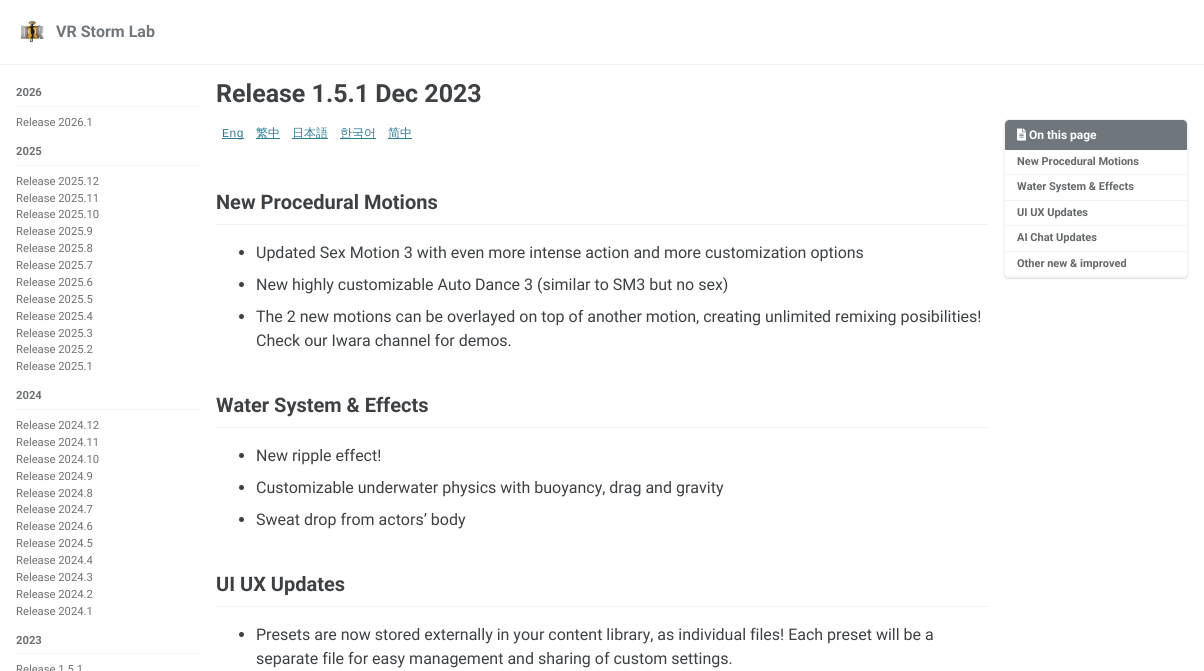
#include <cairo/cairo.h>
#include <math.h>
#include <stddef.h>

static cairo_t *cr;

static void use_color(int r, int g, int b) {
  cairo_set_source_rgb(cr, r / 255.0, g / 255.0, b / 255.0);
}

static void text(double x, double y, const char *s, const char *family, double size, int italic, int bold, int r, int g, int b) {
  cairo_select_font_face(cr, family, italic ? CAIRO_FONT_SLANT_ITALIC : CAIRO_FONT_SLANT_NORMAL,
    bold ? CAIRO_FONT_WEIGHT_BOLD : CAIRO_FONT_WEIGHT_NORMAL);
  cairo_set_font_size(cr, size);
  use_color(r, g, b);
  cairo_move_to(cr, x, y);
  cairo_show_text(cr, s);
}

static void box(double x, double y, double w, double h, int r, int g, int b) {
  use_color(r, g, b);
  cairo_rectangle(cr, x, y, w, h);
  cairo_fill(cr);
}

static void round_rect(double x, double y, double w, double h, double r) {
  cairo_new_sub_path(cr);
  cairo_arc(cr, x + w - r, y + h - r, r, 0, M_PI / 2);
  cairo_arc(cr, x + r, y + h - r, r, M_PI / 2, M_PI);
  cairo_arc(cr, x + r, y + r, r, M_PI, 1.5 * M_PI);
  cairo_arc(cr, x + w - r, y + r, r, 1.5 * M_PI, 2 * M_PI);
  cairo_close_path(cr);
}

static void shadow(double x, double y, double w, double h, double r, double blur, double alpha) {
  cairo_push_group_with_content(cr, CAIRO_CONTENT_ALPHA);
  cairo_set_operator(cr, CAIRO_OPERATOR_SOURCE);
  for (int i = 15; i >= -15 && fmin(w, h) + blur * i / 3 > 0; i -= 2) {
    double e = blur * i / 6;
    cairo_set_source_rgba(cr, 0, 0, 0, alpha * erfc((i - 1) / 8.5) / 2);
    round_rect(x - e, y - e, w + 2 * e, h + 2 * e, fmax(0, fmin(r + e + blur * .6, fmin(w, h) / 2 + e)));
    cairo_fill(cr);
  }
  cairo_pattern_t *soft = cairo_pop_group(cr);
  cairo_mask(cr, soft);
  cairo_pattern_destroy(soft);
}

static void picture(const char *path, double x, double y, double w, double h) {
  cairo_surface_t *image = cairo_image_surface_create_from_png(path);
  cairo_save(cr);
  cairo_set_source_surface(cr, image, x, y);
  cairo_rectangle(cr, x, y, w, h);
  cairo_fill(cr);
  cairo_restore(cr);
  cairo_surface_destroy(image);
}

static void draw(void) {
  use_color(255, 255, 255);
  cairo_paint(cr);
  box(0, 64, 1204, 1, 242, 243, 243);
  picture("img_01.png", 20, 21, 24, 22);
  box(16, 106, 184, 1, 245, 246, 246);
  box(16, 165, 184, 1, 245, 246, 246);
  box(16, 409, 184, 1, 245, 246, 246);
  box(16, 653, 184, 1, 245, 246, 246);
  box(222, 138, 22, 1, 47, 125, 149);
  box(256, 138, 24, 1, 47, 125, 149);
  box(292, 138, 36, 1, 47, 125, 149);
  box(340, 138, 36, 1, 47, 125, 149);
  box(388, 138, 24, 1, 47, 125, 149);
  use_color(0, 0, 0);
  shadow(1004, 120, 184, 159, 4, 0.5, 0.12);
  use_color(255, 255, 255);
  round_rect(1004.5, 119.5, 183, 158, 3.5);
  cairo_fill_preserve(cr);
  use_color(242, 243, 243);
  cairo_set_line_width(cr, 1);
  cairo_stroke(cr);
  use_color(111, 119, 125);
  cairo_new_path(cr);
  cairo_move_to(cr, 1009, 120);
  cairo_line_to(cr, 1183, 120);
  cairo_curve_to(cr, 1185, 120, 1187, 122, 1187, 124);
  cairo_line_to(cr, 1187, 150);
  cairo_line_to(cr, 1005, 150);
  cairo_line_to(cr, 1005, 124);
  cairo_curve_to(cr, 1005, 122, 1007, 120, 1009, 120);
  cairo_close_path(cr);
  cairo_fill(cr);
  picture("img_02.png", 1017, 128, 9, 13);
  box(1005, 174, 182, 1, 242, 243, 243);
  box(1005, 200, 182, 1, 242, 243, 243);
  box(1005, 225, 182, 1, 242, 243, 243);
  box(1005, 251, 182, 1, 242, 243, 243);
  box(1005, 276, 182, 1, 242, 243, 243);
  box(216, 224, 772, 1, 242, 243, 243);
  use_color(61, 65, 68);
  cairo_arc(cr, 241.5, 252.5, 2.5, 0, 2 * M_PI);
  cairo_fill(cr);
  cairo_arc(cr, 241.5, 284.5, 2.5, 0, 2 * M_PI);
  cairo_fill(cr);
  cairo_arc(cr, 241.5, 316.5, 2.5, 0, 2 * M_PI);
  cairo_fill(cr);
  box(216, 427, 772, 1, 242, 243, 243);
  use_color(61, 65, 68);
  cairo_arc(cr, 241.5, 455.5, 2.5, 0, 2 * M_PI);
  cairo_fill(cr);
  cairo_arc(cr, 241.5, 487.5, 2.5, 0, 2 * M_PI);
  cairo_fill(cr);
  cairo_arc(cr, 241.5, 519.5, 2.5, 0, 2 * M_PI);
  cairo_fill(cr);
  box(216, 606, 772, 1, 242, 243, 243);
  use_color(61, 65, 68);
  cairo_arc(cr, 241.5, 634.5, 2.5, 0, 2 * M_PI);
  cairo_fill(cr);
  text(56, 37, "VR Storm Lab", "Roboto", 16, 0, 1, 111, 119, 125);
  text(16, 96, "2026", "Roboto", 11.25, 0, 1, 110, 113, 115);
  text(16, 126, "Release 2026.1", "Roboto", 11.25, 0, 0, 110, 113, 115);
  text(16, 155, "2025", "Roboto", 11.25, 0, 1, 110, 113, 115);
  text(16, 185, "Release 2025.12", "Roboto", 11.25, 0, 0, 110, 113, 115);
  text(16, 202, "Release 2025.11", "Roboto", 11.25, 0, 0, 110, 113, 115);
  text(16, 218, "Release 2025.10", "Roboto", 11.25, 0, 0, 110, 113, 115);
  text(16, 235, "Release 2025.9", "Roboto", 11.25, 0, 0, 110, 113, 115);
  text(16, 252, "Release 2025.8", "Roboto", 11.25, 0, 0, 110, 113, 115);
  text(16, 269, "Release 2025.7", "Roboto", 11.25, 0, 0, 110, 113, 115);
  text(16, 286, "Release 2025.6", "Roboto", 11.25, 0, 0, 110, 113, 115);
  text(16, 303, "Release 2025.5", "Roboto", 11.25, 0, 0, 110, 113, 115);
  text(16, 320, "Release 2025.4", "Roboto", 11.25, 0, 0, 110, 113, 115);
  text(16, 337, "Release 2025.3", "Roboto", 11.25, 0, 0, 110, 113, 115);
  text(16, 353, "Release 2025.2", "Roboto", 11.25, 0, 0, 110, 113, 115);
  text(16, 370, "Release 2025.1", "Roboto", 11.25, 0, 0, 110, 113, 115);
  text(16, 399, "2024", "Roboto", 11.25, 0, 1, 110, 113, 115);
  text(16, 429, "Release 2024.12", "Roboto", 11.25, 0, 0, 110, 113, 115);
  text(16, 446, "Release 2024.11", "Roboto", 11.25, 0, 0, 110, 113, 115);
  text(16, 463, "Release 2024.10", "Roboto", 11.25, 0, 0, 110, 113, 115);
  text(16, 480, "Release 2024.9", "Roboto", 11.25, 0, 0, 110, 113, 115);
  text(16, 497, "Release 2024.8", "Roboto", 11.25, 0, 0, 110, 113, 115);
  text(16, 513, "Release 2024.7", "Roboto", 11.25, 0, 0, 110, 113, 115);
  text(16, 530, "Release 2024.6", "Roboto", 11.25, 0, 0, 110, 113, 115);
  text(16, 547, "Release 2024.5", "Roboto", 11.25, 0, 0, 110, 113, 115);
  text(16, 564, "Release 2024.4", "Roboto", 11.25, 0, 0, 110, 113, 115);
  text(16, 581, "Release 2024.3", "Roboto", 11.25, 0, 0, 110, 113, 115);
  text(16, 598, "Release 2024.2", "Roboto", 11.25, 0, 0, 110, 113, 115);
  text(16, 615, "Release 2024.1", "Roboto", 11.25, 0, 0, 110, 113, 115);
  text(16, 644, "2023", "Roboto", 11.25, 0, 1, 110, 113, 115);
  text(16, 673, "Release 1.5.1", "Roboto", 11.25, 0, 0, 110, 113, 115);
  text(216, 102, "Release 1.5.1 Dec 2023", "Roboto", 25, 0, 1, 61, 65, 68);
  text(222, 137, "Eng", "Liberation Mono", 12, 0, 0, 47, 125, 149);
  text(256, 137, "繁中", "WenQuanYi Zen Hei Medium", 12, 0, 0, 47, 125, 149);
  text(292, 137, "日本語", "WenQuanYi Zen Hei Medium", 12, 0, 0, 47, 125, 149);
  text(340, 137, "한국어", "WenQuanYi Zen Hei Medium", 12, 0, 0, 47, 125, 149);
  text(388, 137, "简中", "WenQuanYi Zen Hei Medium", 12, 0, 0, 47, 125, 149);
  text(1029, 139, "On this page", "Roboto", 12, 0, 1, 255, 255, 255);
  text(1017, 165, "New Procedural Motions", "Roboto", 11, 0, 1, 100, 103, 105);
  text(1017, 190, "Water System & Effects", "Roboto", 11, 0, 1, 100, 103, 105);
  text(1017, 216, "UI UX Updates", "Roboto", 11, 0, 1, 100, 103, 105);
  text(1017, 241, "AI Chat Updates", "Roboto", 11, 0, 1, 100, 103, 105);
  text(1017, 267, "Other new & improved", "Roboto", 11, 0, 1, 100, 103, 105);
  text(216, 209, "New Procedural Motions", "Roboto", 20, 0, 1, 61, 65, 68);
  text(256, 258, "Updated Sex Motion 3 with even more intense action and more customization options", "Roboto", 16, 0, 0, 61, 65, 68);
  text(256, 290, "New highly customizable Auto Dance 3 (similar to SM3 but no sex)", "Roboto", 16, 0, 0, 61, 65, 68);
  text(256, 322, "The 2 new motions can be overlayed on top of another motion, creating unlimited remixing posibilities!", "Roboto", 16, 0, 0, 61, 65, 68);
  text(256, 346, "Check our Iwara channel for demos.", "Roboto", 16, 0, 0, 61, 65, 68);
  text(216, 412, "Water System & Effects", "Roboto", 20, 0, 1, 61, 65, 68);
  text(256, 461, "New ripple effect!", "Roboto", 16, 0, 0, 61, 65, 68);
  text(256, 493, "Customizable underwater physics with buoyancy, drag and gravity", "Roboto", 16, 0, 0, 61, 65, 68);
  text(256, 525, "Sweat drop from actors’ body", "Roboto", 16, 0, 0, 61, 65, 68);
  text(216, 591, "UI UX Updates", "Roboto", 20, 0, 1, 61, 65, 68);
  text(256, 640, "Presets are now stored externally in your content library, as individual files! Each preset will be a", "Roboto", 16, 0, 0, 61, 65, 68);
  text(256, 664, "separate file for easy management and sharing of custom settings.", "Roboto", 16, 0, 0, 61, 65, 68);
}

int main(void) {
  cairo_surface_t *surface = cairo_image_surface_create(CAIRO_FORMAT_RGB24, 1204, 671);
  cr = cairo_create(surface);
  cairo_font_options_t *options = cairo_font_options_create();
  cairo_font_options_set_hint_metrics(options, CAIRO_HINT_METRICS_OFF);
  cairo_font_options_set_hint_style(options, CAIRO_HINT_STYLE_NONE);
  cairo_set_font_options(cr, options);
  cairo_set_miter_limit(cr, 4);
  draw();
  cairo_surface_write_to_png(surface, "out.png");
  cairo_font_options_destroy(options);
  cairo_destroy(cr);
  cairo_surface_destroy(surface);
  return 0;
}
